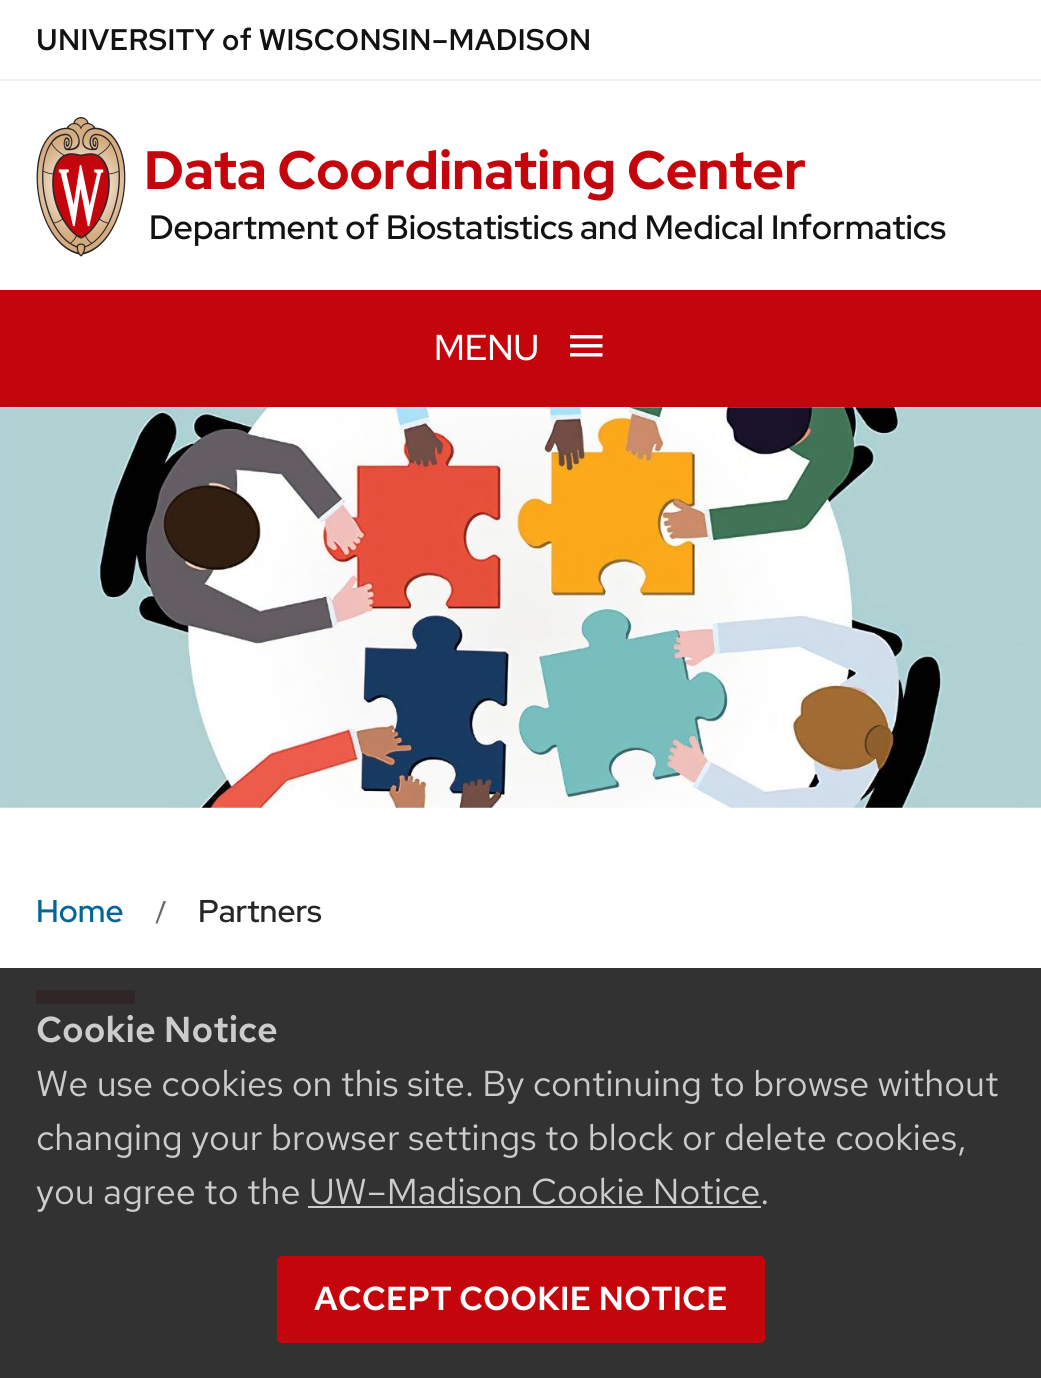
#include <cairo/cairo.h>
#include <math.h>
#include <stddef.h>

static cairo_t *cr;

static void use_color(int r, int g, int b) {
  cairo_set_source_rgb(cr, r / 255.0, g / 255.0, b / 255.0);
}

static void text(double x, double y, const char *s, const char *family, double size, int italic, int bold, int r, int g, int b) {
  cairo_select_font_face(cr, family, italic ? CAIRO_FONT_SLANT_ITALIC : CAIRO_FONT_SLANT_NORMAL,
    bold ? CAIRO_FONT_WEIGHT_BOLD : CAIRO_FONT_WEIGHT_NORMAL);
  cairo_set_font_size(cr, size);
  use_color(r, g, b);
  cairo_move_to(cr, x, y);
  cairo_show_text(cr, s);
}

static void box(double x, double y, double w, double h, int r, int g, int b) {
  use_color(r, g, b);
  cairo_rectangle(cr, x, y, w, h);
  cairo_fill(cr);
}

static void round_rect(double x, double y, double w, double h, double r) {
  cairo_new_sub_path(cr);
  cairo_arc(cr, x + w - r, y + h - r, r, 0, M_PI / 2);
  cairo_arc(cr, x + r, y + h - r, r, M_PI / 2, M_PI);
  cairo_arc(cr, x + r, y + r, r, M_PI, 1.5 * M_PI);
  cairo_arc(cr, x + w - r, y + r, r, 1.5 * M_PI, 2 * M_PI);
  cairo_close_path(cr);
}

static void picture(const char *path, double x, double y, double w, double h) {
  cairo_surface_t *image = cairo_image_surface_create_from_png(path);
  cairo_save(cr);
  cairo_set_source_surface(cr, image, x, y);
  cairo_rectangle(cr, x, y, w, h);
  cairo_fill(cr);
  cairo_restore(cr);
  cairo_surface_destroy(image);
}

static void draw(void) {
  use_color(255, 255, 255);
  cairo_paint(cr);
  box(0, 968, 1041, 410, 51, 50, 51);
  box(0, 79, 1041, 2, 243, 243, 243);
  picture("img_01.png", 36, 117, 90, 140);
  box(0, 290, 1041, 117, 197, 5, 12);
  use_color(255, 255, 255);
  cairo_new_path(cr);
  cairo_move_to(cr, 570, 335);
  cairo_line_to(cr, 602.5, 335);
  cairo_line_to(cr, 602.5, 338.5);
  cairo_line_to(cr, 570, 338.5);
  cairo_close_path(cr);
  cairo_move_to(cr, 570, 347.5);
  cairo_line_to(cr, 570, 344);
  cairo_line_to(cr, 602.5, 344);
  cairo_line_to(cr, 602.5, 347.5);
  cairo_close_path(cr);
  cairo_move_to(cr, 570, 356.5);
  cairo_line_to(cr, 570, 353);
  cairo_line_to(cr, 602.5, 353);
  cairo_line_to(cr, 602.5, 356.5);
  cairo_close_path(cr);
  cairo_fill(cr);
  picture("img_02.png", 0, 407, 1041, 401);
  use_color(100, 101, 105);
  cairo_new_path(cr);
  cairo_move_to(cr, 163.5, 901);
  cairo_line_to(cr, 166, 901);
  cairo_line_to(cr, 157.5, 923.5);
  cairo_line_to(cr, 155.5, 923.5);
  cairo_close_path(cr);
  cairo_fill(cr);
  box(36, 990, 99, 14, 48, 37, 39);
  box(308, 1206, 453, 2, 204, 204, 204);
  use_color(197, 5, 12);
  round_rect(277, 1256, 488, 87, 5);
  cairo_fill(cr);
  text(36, 50, "UNIVERSITY of WISCONSIN–MADISON", "Red Hat Text Medium", 29.75, 0, 0, 18, 18, 18);
  text(144, 189, "Data Coordinating Center", "Red Hat Display", 54, 0, 1, 197, 5, 12);
  text(149, 239, "Department of Biostatistics and Medical Informatics", "Red Hat Display Medium", 33.75, 0, 0, 18, 18, 18);
  text(434, 360, "MENU", "Red Hat Display", 36, 0, 0, 255, 255, 255);
  text(36, 922, "Home", "Red Hat Display Medium", 31.5, 0, 0, 3, 103, 150);
  text(198, 922, "Partners", "Red Hat Display Medium", 31.5, 0, 0, 40, 39, 40);
  text(36, 1042, "Cookie Notice", "Red Hat Text SemiBold", 36, 0, 0, 204, 204, 204);
  text(36, 1096, "We use cookies on this site. By continuing to browse without", "Red Hat Text", 36, 0, 0, 204, 204, 204);
  text(36, 1150, "changing your browser settings to block or delete cookies,", "Red Hat Text", 36, 0, 0, 204, 204, 204);
  text(36, 1204, "you agree to the UW–Madison Cookie Notice.", "Red Hat Text", 36, 0, 0, 204, 204, 204);
  text(314, 1310, "ACCEPT COOKIE NOTICE", "Red Hat Text SemiBold", 33.25, 0, 0, 255, 255, 255);
}

int main(void) {
  cairo_surface_t *surface = cairo_image_surface_create(CAIRO_FORMAT_RGB24, 1041, 1378);
  cr = cairo_create(surface);
  cairo_font_options_t *options = cairo_font_options_create();
  cairo_font_options_set_hint_metrics(options, CAIRO_HINT_METRICS_OFF);
  cairo_font_options_set_hint_style(options, CAIRO_HINT_STYLE_NONE);
  cairo_set_font_options(cr, options);
  cairo_set_miter_limit(cr, 4);
  draw();
  cairo_surface_write_to_png(surface, "out.png");
  cairo_font_options_destroy(options);
  cairo_destroy(cr);
  cairo_surface_destroy(surface);
  return 0;
}
